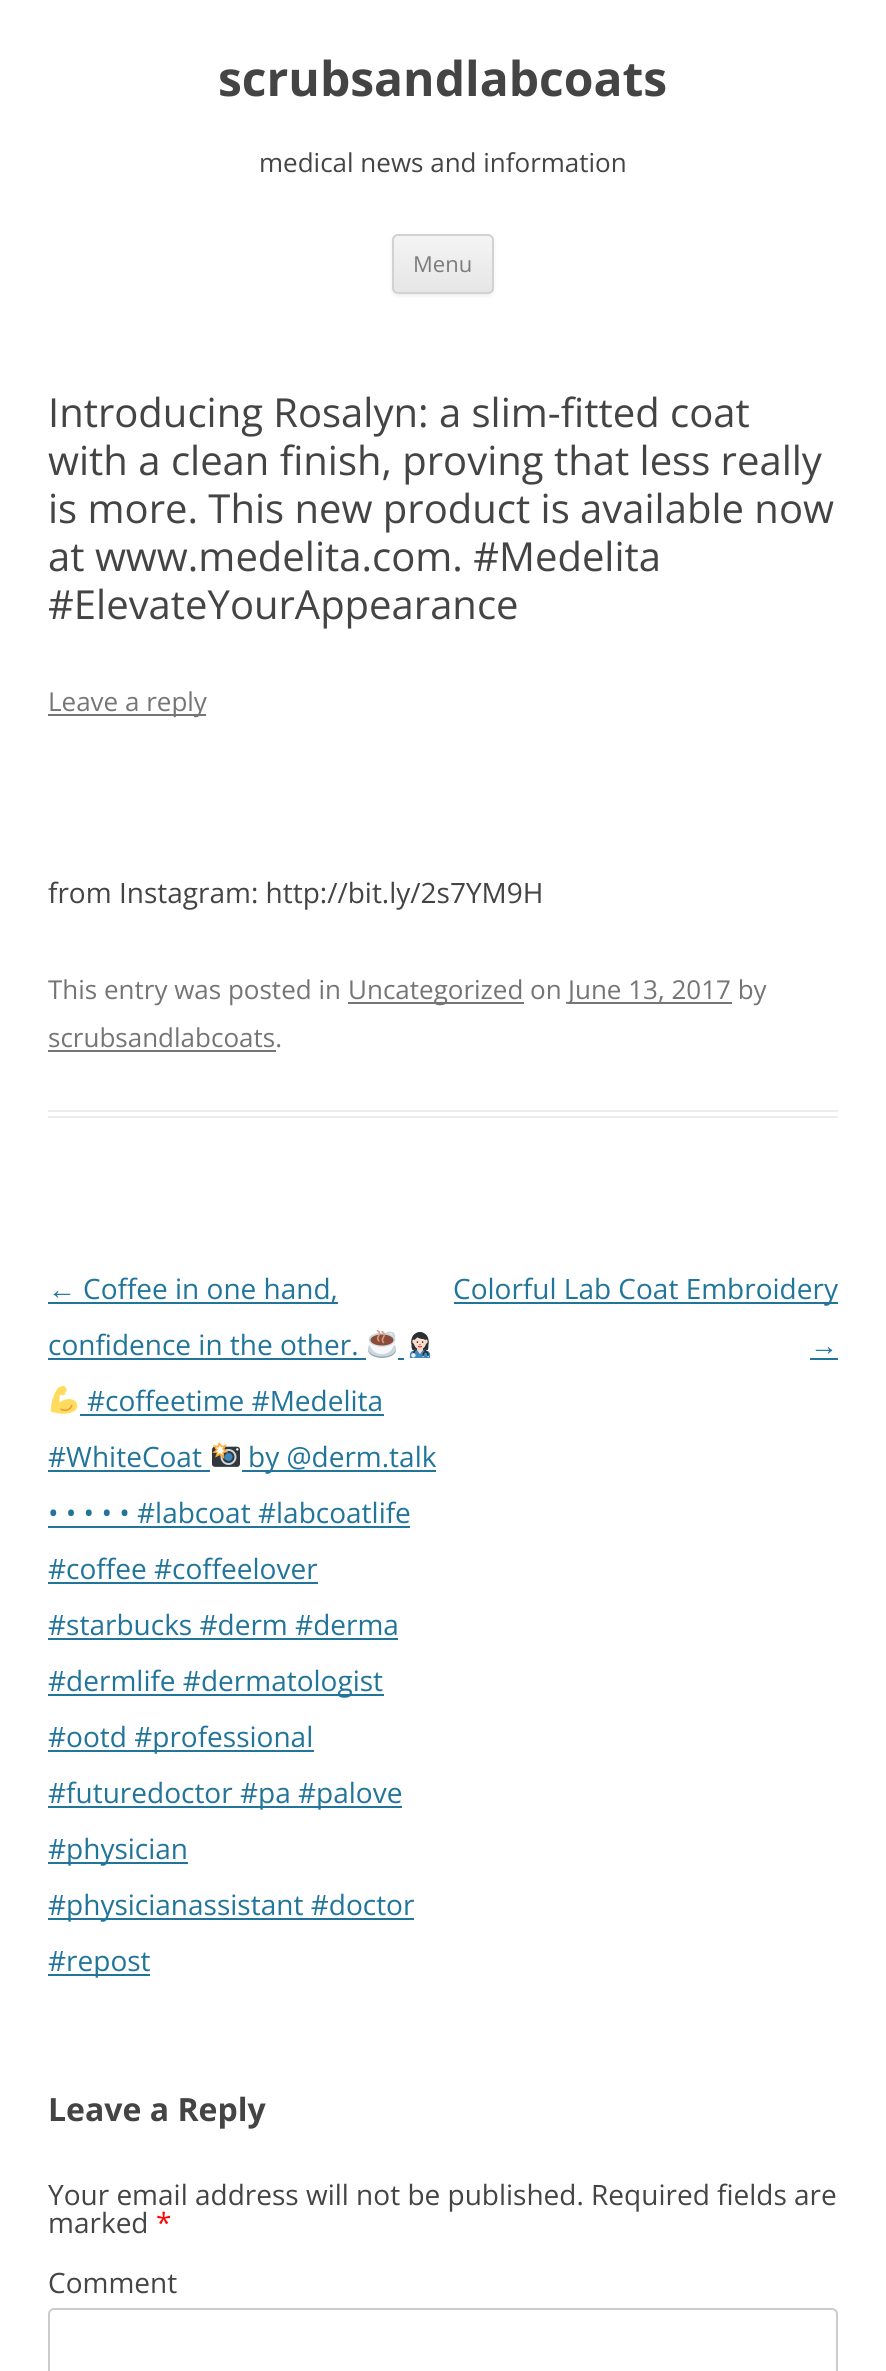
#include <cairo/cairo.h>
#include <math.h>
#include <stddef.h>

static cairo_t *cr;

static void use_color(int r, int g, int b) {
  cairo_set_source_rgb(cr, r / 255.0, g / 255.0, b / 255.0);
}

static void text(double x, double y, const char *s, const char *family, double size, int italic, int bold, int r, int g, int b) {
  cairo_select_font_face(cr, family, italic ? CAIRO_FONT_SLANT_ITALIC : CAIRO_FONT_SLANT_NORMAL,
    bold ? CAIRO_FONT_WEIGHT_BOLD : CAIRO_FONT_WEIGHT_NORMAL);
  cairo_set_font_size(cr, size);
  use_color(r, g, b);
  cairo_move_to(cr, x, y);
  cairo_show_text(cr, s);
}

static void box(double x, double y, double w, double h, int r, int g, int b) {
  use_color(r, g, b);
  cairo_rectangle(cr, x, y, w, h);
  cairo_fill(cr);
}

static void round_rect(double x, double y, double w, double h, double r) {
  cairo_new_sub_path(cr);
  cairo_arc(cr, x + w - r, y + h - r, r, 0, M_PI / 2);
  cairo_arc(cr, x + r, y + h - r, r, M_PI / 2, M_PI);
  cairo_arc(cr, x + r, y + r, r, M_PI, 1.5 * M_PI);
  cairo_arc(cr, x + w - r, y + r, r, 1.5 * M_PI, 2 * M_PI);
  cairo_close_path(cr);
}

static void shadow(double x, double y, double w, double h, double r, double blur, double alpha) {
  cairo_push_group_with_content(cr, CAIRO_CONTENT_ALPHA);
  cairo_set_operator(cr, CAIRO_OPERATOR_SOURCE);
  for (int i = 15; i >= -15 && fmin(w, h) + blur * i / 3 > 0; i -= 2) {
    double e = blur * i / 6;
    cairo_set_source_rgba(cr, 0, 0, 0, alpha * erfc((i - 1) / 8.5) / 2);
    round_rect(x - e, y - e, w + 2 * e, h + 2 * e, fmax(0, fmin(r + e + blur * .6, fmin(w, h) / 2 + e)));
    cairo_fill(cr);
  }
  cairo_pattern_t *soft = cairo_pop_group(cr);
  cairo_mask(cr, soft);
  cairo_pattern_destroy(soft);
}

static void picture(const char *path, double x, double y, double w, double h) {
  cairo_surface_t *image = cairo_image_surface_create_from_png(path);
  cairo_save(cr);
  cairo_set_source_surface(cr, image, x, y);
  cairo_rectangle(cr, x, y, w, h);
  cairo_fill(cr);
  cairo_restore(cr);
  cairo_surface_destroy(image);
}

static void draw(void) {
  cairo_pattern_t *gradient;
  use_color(255, 255, 255);
  cairo_paint(cr);
  use_color(64, 64, 64);
  shadow(392, 236, 102, 60, 6, 2, 0.1);
  cairo_save(cr);
  round_rect(392, 234, 102, 60, 6);
  cairo_clip(cr);
  gradient = cairo_pattern_create_linear(443, 236, 443, 292);
  cairo_pattern_add_color_stop_rgba(gradient, 0, 0.957, 0.957, 0.957, 1);
  cairo_pattern_add_color_stop_rgba(gradient, 1, 0.902, 0.902, 0.902, 1);
  cairo_set_source(cr, gradient);
  cairo_pattern_destroy(gradient);
  cairo_rectangle(cr, 392, 236, 102, 56);
  cairo_fill(cr);
  cairo_restore(cr);
  round_rect(393, 235, 100, 58, 5);
  use_color(210, 210, 210);
  cairo_stroke(cr);
  box(48, 1110, 790, 2, 237, 237, 237);
  box(48, 1116, 790, 2, 237, 237, 237);
  box(48, 714, 158, 2, 117, 117, 117);
  box(348, 1002, 176, 2, 117, 117, 117);
  box(568, 1002, 164, 2, 117, 117, 117);
  box(48, 1050, 228, 2, 117, 117, 117);
  box(48, 1302, 290, 2, 33, 117, 155);
  box(48, 1358, 318, 2, 33, 117, 155);
  box(398, 1358, 6, 2, 33, 117, 155);
  picture("img_01.png", 368, 1330, 28, 28);
  picture("img_02.png", 409, 1332, 22, 26);
  picture("img_03.png", 50, 1386, 28, 28);
  box(80, 1414, 304, 2, 33, 117, 155);
  box(48, 1470, 162, 2, 33, 117, 155);
  picture("img_04.png", 212, 1442, 28, 25);
  box(242, 1470, 194, 2, 33, 117, 155);
  box(48, 1526, 362, 2, 33, 117, 155);
  box(48, 1582, 270, 2, 33, 117, 155);
  box(48, 1638, 350, 2, 33, 117, 155);
  box(48, 1694, 336, 2, 33, 117, 155);
  box(48, 1750, 266, 2, 33, 117, 155);
  box(48, 1806, 354, 2, 33, 117, 155);
  box(48, 1862, 140, 2, 33, 117, 155);
  box(48, 1918, 366, 2, 33, 117, 155);
  box(48, 1974, 102, 2, 33, 117, 155);
  box(454, 1302, 384, 2, 33, 117, 155);
  box(810, 1358, 28, 2, 33, 117, 155);
  round_rect(49, 2309, 788, 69, 5);
  use_color(204, 204, 204);
  cairo_stroke(cr);
  text(218, 96, "scrubsandlabcoats", "Open Sans", 48, 0, 1, 68, 68, 68);
  text(259, 172, "medical news and information", "Open Sans", 26, 0, 0, 68, 68, 68);
  text(413, 272, "Menu", "Open Sans", 22, 0, 0, 124, 124, 124);
  text(48, 427, "Introducing Rosalyn: a slim-fitted coat", "Open Sans", 40, 0, 0, 68, 68, 68);
  text(48, 475, "with a clean finish, proving that less really", "Open Sans", 40, 0, 0, 68, 68, 68);
  text(48, 523, "is more. This new product is available now", "Open Sans", 40, 0, 0, 68, 68, 68);
  text(48, 571, "at www.medelita.com. #Medelita", "Open Sans", 40, 0, 0, 68, 68, 68);
  text(48, 619, "#ElevateYourAppearance", "Open Sans", 40, 0, 0, 68, 68, 68);
  text(48, 711, "Leave a reply", "Open Sans", 26, 0, 0, 117, 117, 117);
  text(48, 903, "from Instagram: http://bit.ly/2s7YM9H", "Open Sans", 28, 0, 0, 68, 68, 68);
  text(48, 999, "This entry was posted in", "Open Sans", 26, 0, 0, 117, 117, 117);
  text(348, 999, "Uncategorized on", "Open Sans", 26, 0, 0, 117, 117, 117);
  text(568, 999, "June 13, 2017 by", "Open Sans", 26, 0, 0, 117, 117, 117);
  text(48, 1047, "scrubsandlabcoats.", "Open Sans", 26, 0, 0, 117, 117, 117);
  text(48, 1299, "←", "Liberation Sans", 28, 0, 0, 33, 117, 155);
  text(83, 1299, "Coffee in one hand,", "Open Sans", 28, 0, 0, 33, 117, 155);
  text(48, 1355, "confidence in the other.", "Open Sans", 28, 0, 0, 33, 117, 155);
  text(87, 1411, "#coffeetime #Medelita", "Open Sans", 28, 0, 0, 33, 117, 155);
  text(48, 1467, "#WhiteCoat", "Open Sans", 28, 0, 0, 33, 117, 155);
  text(248, 1467, "by @derm.talk", "Open Sans", 28, 0, 0, 33, 117, 155);
  text(48, 1523, "• • • • • #labcoat #labcoatlife", "Open Sans", 28, 0, 0, 33, 117, 155);
  text(48, 1579, "#coffee #coffeelover", "Open Sans", 28, 0, 0, 33, 117, 155);
  text(48, 1635, "#starbucks #derm #derma", "Open Sans", 28, 0, 0, 33, 117, 155);
  text(48, 1691, "#dermlife #dermatologist", "Open Sans", 28, 0, 0, 33, 117, 155);
  text(48, 1747, "#ootd #professional", "Open Sans", 28, 0, 0, 33, 117, 155);
  text(48, 1803, "#futuredoctor #pa #palove", "Open Sans", 28, 0, 0, 33, 117, 155);
  text(48, 1859, "#physician", "Open Sans", 28, 0, 0, 33, 117, 155);
  text(48, 1915, "#physicianassistant #doctor", "Open Sans", 28, 0, 0, 33, 117, 155);
  text(48, 1971, "#repost", "Open Sans", 28, 0, 0, 33, 117, 155);
  text(453, 1299, "Colorful Lab Coat Embroidery", "Open Sans", 28, 0, 0, 33, 117, 155);
  text(810, 1355, "→", "Liberation Sans", 28, 0, 0, 33, 117, 155);
  text(48, 2121, "Leave a Reply", "Open Sans", 32, 0, 1, 68, 68, 68);
  text(48, 2205, "Your email address will not be published. Required fields are", "Open Sans", 28, 0, 0, 68, 68, 68);
  text(48, 2233, "marked", "Open Sans", 28, 0, 0, 68, 68, 68);
  text(156, 2233, "*", "Open Sans", 28, 0, 0, 255, 0, 0);
  text(48, 2293, "Comment", "Open Sans", 28, 0, 0, 68, 68, 68);
}

int main(void) {
  cairo_surface_t *surface = cairo_image_surface_create(CAIRO_FORMAT_RGB24, 886, 2371);
  cr = cairo_create(surface);
  cairo_font_options_t *options = cairo_font_options_create();
  cairo_font_options_set_hint_metrics(options, CAIRO_HINT_METRICS_OFF);
  cairo_font_options_set_hint_style(options, CAIRO_HINT_STYLE_NONE);
  cairo_set_font_options(cr, options);
  cairo_set_miter_limit(cr, 4);
  draw();
  cairo_surface_write_to_png(surface, "out.png");
  cairo_font_options_destroy(options);
  cairo_destroy(cr);
  cairo_surface_destroy(surface);
  return 0;
}
